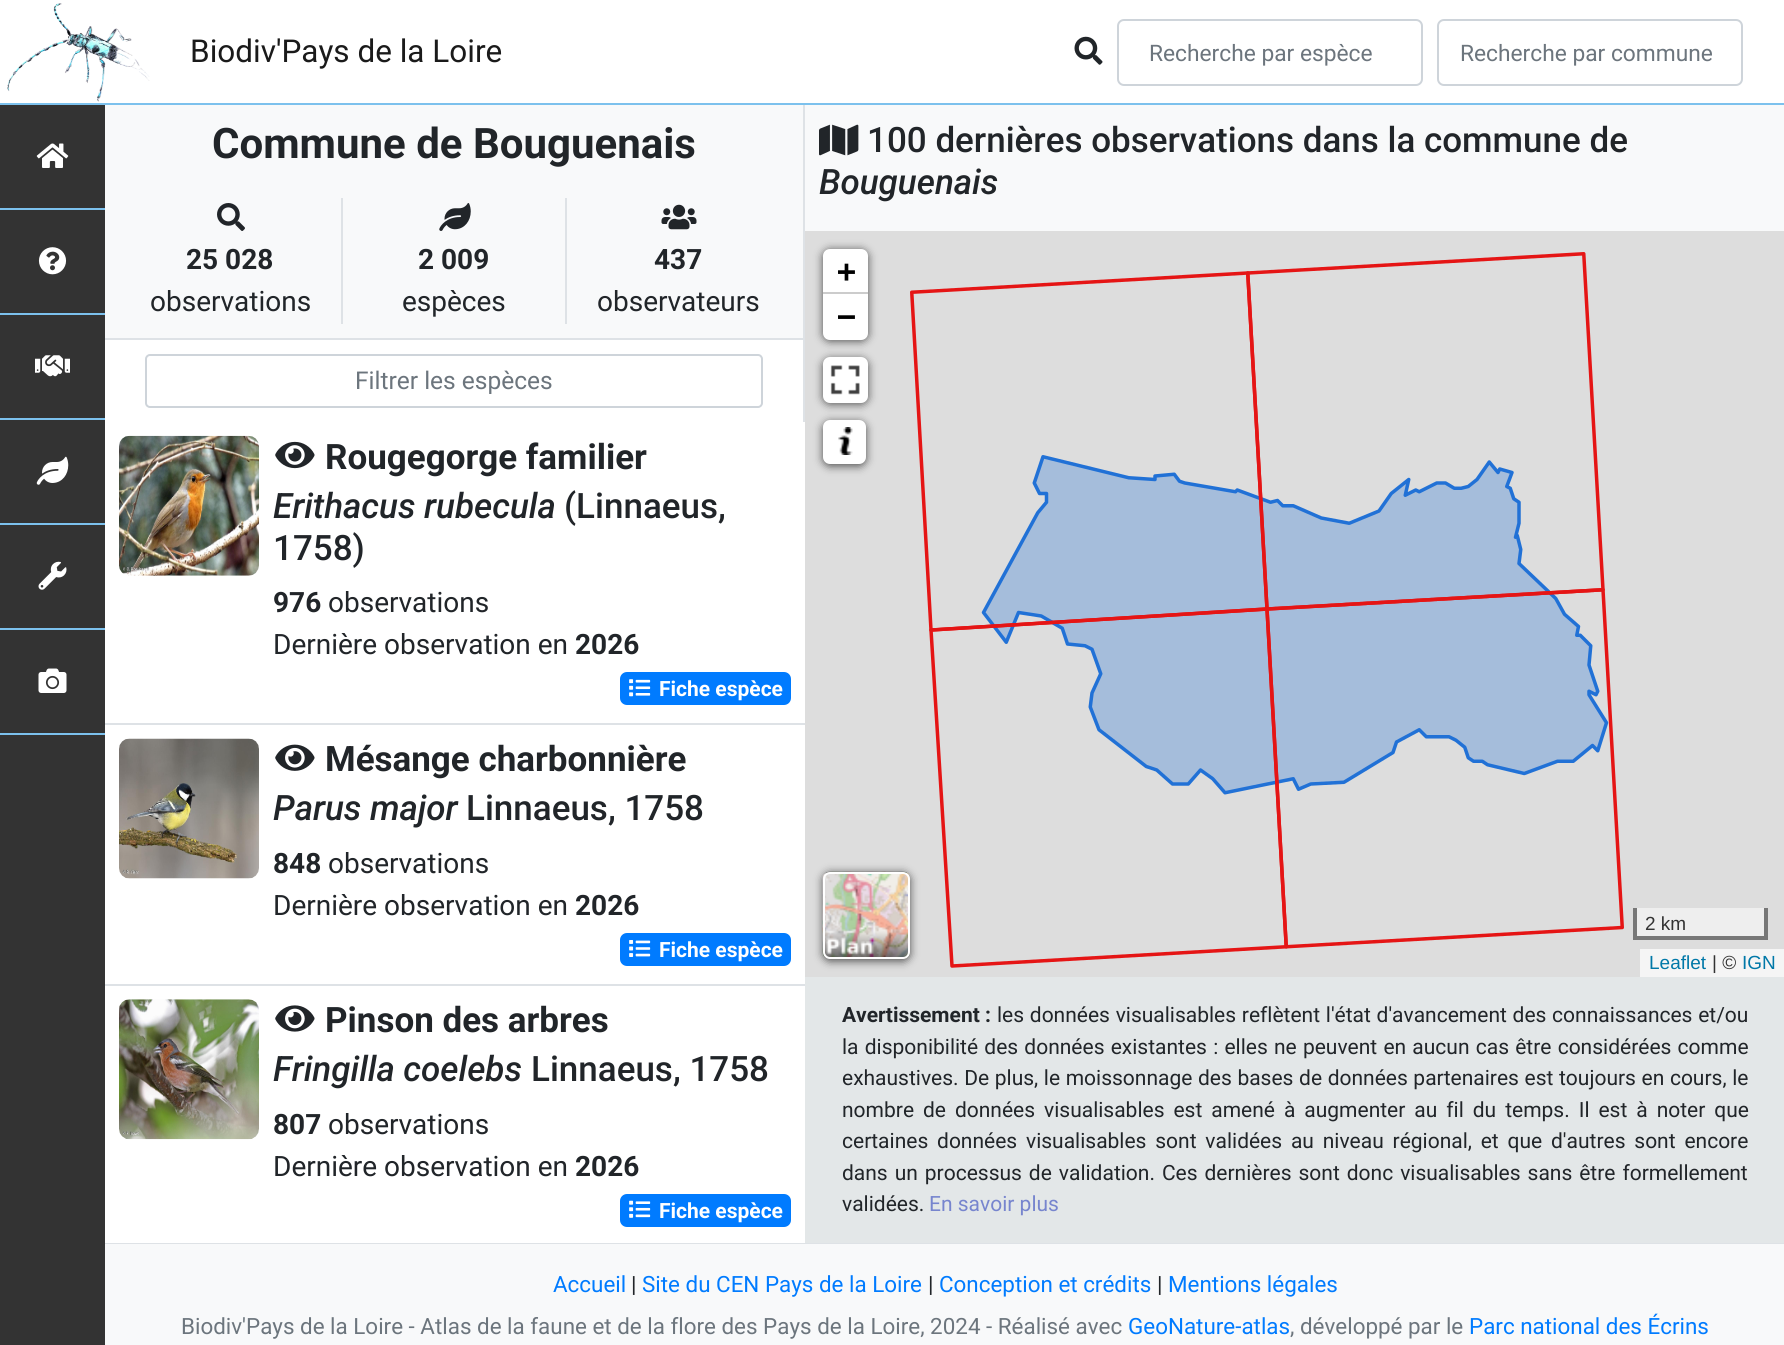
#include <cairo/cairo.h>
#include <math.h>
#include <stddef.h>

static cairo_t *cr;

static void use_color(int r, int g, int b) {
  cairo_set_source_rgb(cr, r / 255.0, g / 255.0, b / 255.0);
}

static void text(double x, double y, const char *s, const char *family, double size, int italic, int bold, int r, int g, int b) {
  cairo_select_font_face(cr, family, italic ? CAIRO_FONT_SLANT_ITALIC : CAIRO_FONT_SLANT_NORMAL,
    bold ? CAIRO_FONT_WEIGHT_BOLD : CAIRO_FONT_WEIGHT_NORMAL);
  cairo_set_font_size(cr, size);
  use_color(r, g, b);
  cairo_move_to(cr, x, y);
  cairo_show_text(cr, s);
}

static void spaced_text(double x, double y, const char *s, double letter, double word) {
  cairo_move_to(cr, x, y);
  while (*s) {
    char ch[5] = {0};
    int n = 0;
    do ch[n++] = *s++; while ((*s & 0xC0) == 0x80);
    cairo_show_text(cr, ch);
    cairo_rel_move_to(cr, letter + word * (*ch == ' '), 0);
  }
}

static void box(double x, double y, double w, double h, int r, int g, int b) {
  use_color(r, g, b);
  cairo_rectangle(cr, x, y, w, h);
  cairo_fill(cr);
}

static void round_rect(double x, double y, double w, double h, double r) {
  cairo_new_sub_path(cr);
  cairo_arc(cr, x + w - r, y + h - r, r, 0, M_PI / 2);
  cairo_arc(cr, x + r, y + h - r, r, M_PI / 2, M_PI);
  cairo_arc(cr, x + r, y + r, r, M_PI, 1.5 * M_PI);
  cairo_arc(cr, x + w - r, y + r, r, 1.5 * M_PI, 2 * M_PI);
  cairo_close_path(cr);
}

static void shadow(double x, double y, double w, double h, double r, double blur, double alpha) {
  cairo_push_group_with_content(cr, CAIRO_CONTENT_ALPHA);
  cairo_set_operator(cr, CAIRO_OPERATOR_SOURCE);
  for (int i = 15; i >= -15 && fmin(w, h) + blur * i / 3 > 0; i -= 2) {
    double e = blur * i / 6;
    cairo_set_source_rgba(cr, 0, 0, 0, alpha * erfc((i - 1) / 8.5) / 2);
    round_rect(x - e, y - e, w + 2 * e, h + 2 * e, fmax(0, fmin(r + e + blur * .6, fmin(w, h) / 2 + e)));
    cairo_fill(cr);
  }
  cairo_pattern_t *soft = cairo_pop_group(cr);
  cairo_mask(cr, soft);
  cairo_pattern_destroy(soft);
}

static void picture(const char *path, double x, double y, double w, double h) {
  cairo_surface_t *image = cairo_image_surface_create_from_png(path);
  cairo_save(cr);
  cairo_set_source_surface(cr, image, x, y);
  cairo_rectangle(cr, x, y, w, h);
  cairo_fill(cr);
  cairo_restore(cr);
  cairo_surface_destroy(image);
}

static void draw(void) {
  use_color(227, 231, 232);
  cairo_paint(cr);
  box(0, 0, 1784, 103, 255, 255, 255);
  box(0, 103, 1784, 2, 124, 193, 237);
  picture("img_01.png", 7, 3, 143, 99);
  picture("img_02.png", 1074, 36, 29, 29);
  round_rect(1118, 20, 304, 65, 6);
  use_color(206, 212, 218);
  cairo_stroke(cr);
  round_rect(1438, 20, 304, 65, 6);
  cairo_stroke(cr);
  box(0, 105, 105, 1240, 51, 51, 51);
  box(0, 208, 105, 2, 124, 193, 237);
  picture("img_03.png", 36, 143, 33, 25);
  box(0, 313, 105, 2, 124, 193, 237);
  picture("img_04.png", 38, 247, 29, 28);
  box(0, 418, 105, 2, 124, 193, 237);
  picture("img_05.png", 35, 355, 35, 22);
  box(0, 523, 105, 2, 124, 193, 237);
  picture("img_06.png", 36, 456, 33, 29);
  box(0, 628, 105, 2, 124, 193, 237);
  picture("img_07.png", 38, 561, 29, 29);
  box(0, 733, 105, 2, 124, 193, 237);
  picture("img_08.png", 38, 668, 29, 25);
  box(105, 1243, 1679, 1, 222, 226, 230);
  box(105, 105, 698, 233, 248, 249, 250);
  box(803, 105, 2, 317, 222, 226, 230);
  box(105, 338, 700, 2, 222, 226, 230);
  box(341, 198, 2, 126, 222, 226, 230);
  picture("img_09.png", 217, 203, 28, 28);
  box(565, 198, 2, 126, 222, 226, 230);
  picture("img_10.png", 439, 203, 32, 28);
  picture("img_11.png", 661, 204, 36, 26);
  box(105, 340, 698, 82, 255, 255, 255);
  round_rect(146, 355, 616, 52, 4);
  use_color(206, 212, 218);
  cairo_stroke(cr);
  box(105, 422, 700, 821, 255, 255, 255);
  box(105, 723, 700, 2, 222, 226, 230);
  picture("img_12.png", 119, 435, 140, 141);
  picture("img_13.png", 275, 441, 40, 28);
  use_color(0, 123, 255);
  round_rect(620, 672, 171, 33, 7);
  cairo_fill(cr);
  picture("img_14.png", 629, 679, 22, 18);
  box(105, 984, 700, 2, 222, 226, 230);
  picture("img_15.png", 119, 738, 140, 141);
  picture("img_16.png", 275, 744, 40, 27);
  use_color(0, 123, 255);
  round_rect(620, 933, 171, 33, 7);
  cairo_fill(cr);
  picture("img_17.png", 629, 940, 22, 17);
  picture("img_18.png", 119, 999, 140, 141);
  picture("img_19.png", 275, 1005, 40, 27);
  round_rect(620, 1194, 171, 33, 7);
  cairo_fill(cr);
  picture("img_20.png", 629, 1200, 22, 18);
  box(805, 105, 979, 126, 248, 249, 250);
  picture("img_21.png", 819, 124, 40, 32);
  box(805, 231, 979, 746, 221, 221, 221);
  picture("img_22.png", 910, 252, 714, 716);
  use_color(0, 0, 0);
  shadow(823, 250, 45, 91, 7, 4.5, 0.65);
  use_color(255, 255, 255);
  cairo_new_path(cr);
  cairo_move_to(cr, 830, 249);
  cairo_line_to(cr, 861, 249);
  cairo_curve_to(cr, 865, 249, 868, 252, 868, 256);
  cairo_line_to(cr, 868, 294);
  cairo_line_to(cr, 823, 294);
  cairo_line_to(cr, 823, 256);
  cairo_curve_to(cr, 823, 252, 826, 249, 830, 249);
  cairo_close_path(cr);
  cairo_fill(cr);
  box(823, 292, 45, 2, 204, 204, 204);
  use_color(255, 255, 255);
  cairo_new_path(cr);
  cairo_move_to(cr, 823, 294);
  cairo_line_to(cr, 868, 294);
  cairo_line_to(cr, 868, 333);
  cairo_curve_to(cr, 868, 337, 865, 340, 861, 340);
  cairo_line_to(cr, 830, 340);
  cairo_curve_to(cr, 826, 340, 823, 337, 823, 333);
  cairo_close_path(cr);
  cairo_fill(cr);
  use_color(0, 0, 0);
  shadow(823, 359, 45, 45, 7, 4.5, 0.65);
  use_color(255, 255, 255);
  round_rect(823, 357, 45, 46, 7);
  cairo_fill(cr);
  picture("img_23.png", 830, 365, 30, 30);
  use_color(0, 0, 0);
  shadow(823, 422, 43, 44, 7, 4.5, 0.65);
  use_color(255, 255, 255);
  round_rect(824, 421, 41, 42, 6);
  cairo_fill_preserve(cr);
  cairo_stroke(cr);
  picture("img_24.png", 838, 427, 15, 28);
  use_color(0, 0, 0);
  shadow(823, 873, 87, 88, 7, 4.5, 0.65);
  picture("img_25.png", 822, 871, 88, 88);
  round_rect(824, 873, 85, 85, 6);
  use_color(255, 255, 255);
  cairo_stroke(cr);
  box(1637, 908, 127, 28, 238, 238, 238);
  box(1764, 908, 4, 32, 119, 119, 119);
  box(1633, 936, 135, 4, 119, 119, 119);
  box(1633, 908, 4, 32, 119, 119, 119);
  box(1640, 949, 144, 28, 245, 245, 245);
  box(105, 1244, 1679, 101, 248, 249, 250);
  text(190, 62, "Biodiv'Pays de la Loire", "Roboto", 31.5, 0, 0, 26, 26, 26);
  text(1149, 61, "Recherche par espèce", "Roboto", 22.75, 0, 0, 108, 117, 125);
  text(1460, 61, "Recherche par commune", "Roboto", 22.75, 0, 0, 108, 117, 125);
  text(212, 158, "Commune de Bouguenais", "Roboto", 42, 0, 1, 33, 37, 41);
  text(186, 269, "25 028", "Roboto", 28, 0, 1, 33, 37, 41);
  text(150, 311, "observations", "Roboto", 28, 0, 0, 33, 37, 41);
  text(418, 269, "2 009", "Roboto", 28, 0, 1, 33, 37, 41);
  text(402, 311, "espèces", "Roboto", 28, 0, 0, 33, 37, 41);
  text(654, 269, "437", "Roboto", 28, 0, 1, 33, 37, 41);
  text(597, 311, "observateurs", "Roboto", 28, 0, 0, 33, 37, 41);
  text(355, 389, "Filtrer les espèces", "Roboto", 24.5, 0, 0, 108, 117, 125);
  text(325, 469, "Rougegorge familier", "Roboto", 35, 0, 1, 33, 37, 41);
  text(273, 518, "Erithacus rubecula", "Roboto Medium", 35, 1, 0, 33, 37, 41);
  text(564, 518, "(Linnaeus,", "Roboto Medium", 35, 0, 0, 33, 37, 41);
  text(273, 560, "1758)", "Roboto Medium", 35, 0, 0, 33, 37, 41);
  text(273, 612, "976", "Roboto", 28, 0, 1, 33, 37, 41);
  text(328, 612, "observations", "Roboto", 28, 0, 0, 33, 37, 41);
  text(273, 654, "Dernière observation en", "Roboto", 28, 0, 0, 33, 37, 41);
  text(575, 654, "2026", "Roboto", 28, 0, 1, 33, 37, 41);
  text(659, 696, "Fiche espèce", "Roboto", 21, 0, 1, 255, 255, 255);
  text(325, 771, "Mésange charbonnière", "Roboto", 35, 0, 1, 33, 37, 41);
  text(273, 820, "Parus major", "Roboto Medium", 35, 1, 0, 33, 37, 41);
  text(466, 820, "Linnaeus, 1758", "Roboto Medium", 35, 0, 0, 33, 37, 41);
  text(273, 873, "848", "Roboto", 28, 0, 1, 33, 37, 41);
  text(328, 873, "observations", "Roboto", 28, 0, 0, 33, 37, 41);
  text(273, 915, "Dernière observation en", "Roboto", 28, 0, 0, 33, 37, 41);
  text(575, 915, "2026", "Roboto", 28, 0, 1, 33, 37, 41);
  text(659, 957, "Fiche espèce", "Roboto", 21, 0, 1, 255, 255, 255);
  text(325, 1032, "Pinson des arbres", "Roboto", 35, 0, 1, 33, 37, 41);
  text(273, 1081, "Fringilla coelebs", "Roboto Medium", 35, 1, 0, 33, 37, 41);
  text(531, 1081, "Linnaeus, 1758", "Roboto Medium", 35, 0, 0, 33, 37, 41);
  text(273, 1134, "807", "Roboto", 28, 0, 1, 33, 37, 41);
  text(328, 1134, "observations", "Roboto", 28, 0, 0, 33, 37, 41);
  text(273, 1176, "Dernière observation en", "Roboto", 28, 0, 0, 33, 37, 41);
  text(575, 1176, "2026", "Roboto", 28, 0, 1, 33, 37, 41);
  text(659, 1218, "Fiche espèce", "Roboto", 21, 0, 1, 255, 255, 255);
  text(867, 152, "100 dernières observations dans la commune de", "Roboto Medium", 35, 0, 0, 33, 37, 41);
  text(819, 194, "Bouguenais", "Roboto Medium", 35, 1, 0, 33, 37, 41);
  text(837, 282, "+", "DejaVu Sans Mono", 31.5, 0, 1, 0, 0, 0);
  text(837, 327, "−", "DejaVu Sans Mono", 31.5, 0, 1, 0, 0, 0);
  text(1645, 930, "2 km", "Liberation Sans", 19, 0, 0, 51, 51, 51);
  text(1649, 969, "Leaflet", "Liberation Sans", 19, 0, 0, 0, 120, 168);
  text(1712, 969, "| ©", "Liberation Sans", 19, 0, 0, 51, 51, 51);
  text(1742, 969, "IGN", "Liberation Sans", 19, 0, 0, 0, 120, 168);
  text(842, 1022, "Avertissement :", "Roboto", 21, 0, 1, 33, 37, 41);
  cairo_select_font_face(cr, "Roboto", CAIRO_FONT_SLANT_NORMAL, CAIRO_FONT_WEIGHT_NORMAL);
  spaced_text(997, 1022, "les données visualisables reflètent l'état d'avancement des connaissances et/ou", 0, 0.5);
  spaced_text(842, 1054, "la disponibilité des données existantes : elles ne peuvent en aucun cas être considérées comme", 0, 1);
  spaced_text(842, 1085, "exhaustives. De plus, le moissonnage des bases de données partenaires est toujours en cours, le", 0, 0.4);
  spaced_text(842, 1117, "nombre de données visualisables est amené à augmenter au fil du temps. Il est à noter que", 0, 3.75);
  spaced_text(842, 1148, "certaines données visualisables sont validées au niveau régional, et que d'autres sont encore", 0, 3.6);
  spaced_text(842, 1180, "dans un processus de validation. Ces dernières sont donc visualisables sans être formellement", 0, 1.75);
  text(842, 1211, "validées.", "Roboto", 21, 0, 0, 33, 37, 41);
  text(929, 1211, "En savoir plus", "Roboto", 21, 0, 0, 119, 133, 206);
  text(553, 1292, "Accueil", "Roboto", 22.4, 0, 0, 0, 123, 255);
  text(631, 1292, "|", "Roboto", 22.4, 0, 0, 33, 37, 41);
  text(642, 1292, "Site du CEN Pays de la Loire", "Roboto", 22.4, 0, 0, 0, 123, 255);
  text(928, 1292, "|", "Roboto", 22.4, 0, 0, 33, 37, 41);
  text(939, 1292, "Conception et crédits", "Roboto", 22.4, 0, 0, 0, 123, 255);
  text(1157, 1292, "|", "Roboto", 22.4, 0, 0, 33, 37, 41);
  text(1168, 1292, "Mentions légales", "Roboto", 22.4, 0, 0, 0, 123, 255);
  text(181, 1334, "Biodiv'Pays de la Loire - Atlas de la faune et de la flore des Pays de la Loire, 2024 - Réalisé avec", "Roboto", 22.4, 0, 0, 108, 117, 125);
  text(1128, 1334, "GeoNature-atlas", "Roboto", 22.4, 0, 0, 0, 123, 255);
  text(1290, 1334, ", développé par le", "Roboto", 22.4, 0, 0, 108, 117, 125);
  text(1469, 1334, "Parc national des Écrins", "Roboto", 22.4, 0, 0, 0, 123, 255);
}

int main(void) {
  cairo_surface_t *surface = cairo_image_surface_create(CAIRO_FORMAT_RGB24, 1784, 1345);
  cr = cairo_create(surface);
  cairo_font_options_t *options = cairo_font_options_create();
  cairo_font_options_set_hint_metrics(options, CAIRO_HINT_METRICS_OFF);
  cairo_font_options_set_hint_style(options, CAIRO_HINT_STYLE_NONE);
  cairo_set_font_options(cr, options);
  cairo_set_miter_limit(cr, 4);
  draw();
  cairo_surface_write_to_png(surface, "out.png");
  cairo_font_options_destroy(options);
  cairo_destroy(cr);
  cairo_surface_destroy(surface);
  return 0;
}
